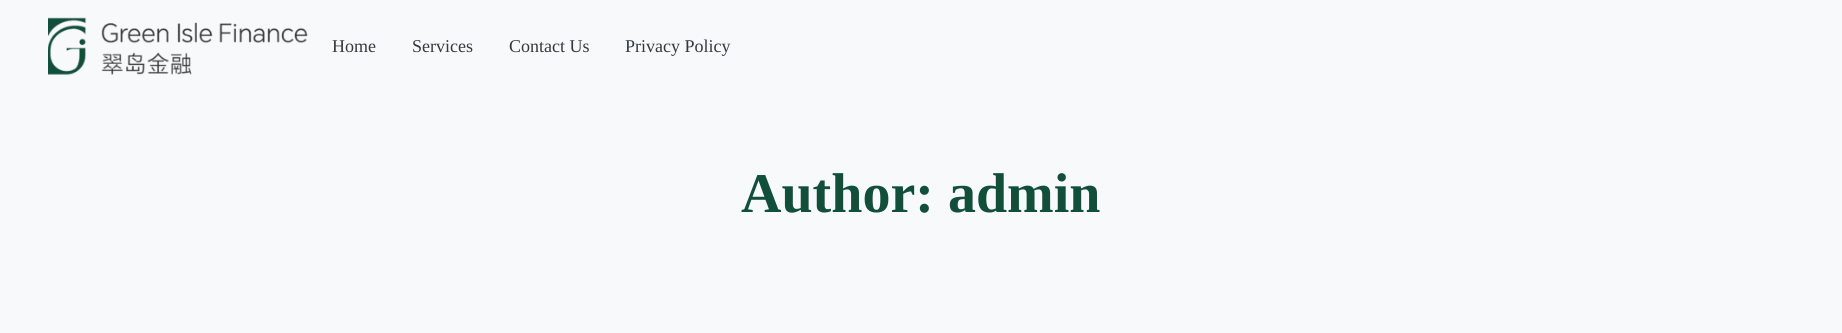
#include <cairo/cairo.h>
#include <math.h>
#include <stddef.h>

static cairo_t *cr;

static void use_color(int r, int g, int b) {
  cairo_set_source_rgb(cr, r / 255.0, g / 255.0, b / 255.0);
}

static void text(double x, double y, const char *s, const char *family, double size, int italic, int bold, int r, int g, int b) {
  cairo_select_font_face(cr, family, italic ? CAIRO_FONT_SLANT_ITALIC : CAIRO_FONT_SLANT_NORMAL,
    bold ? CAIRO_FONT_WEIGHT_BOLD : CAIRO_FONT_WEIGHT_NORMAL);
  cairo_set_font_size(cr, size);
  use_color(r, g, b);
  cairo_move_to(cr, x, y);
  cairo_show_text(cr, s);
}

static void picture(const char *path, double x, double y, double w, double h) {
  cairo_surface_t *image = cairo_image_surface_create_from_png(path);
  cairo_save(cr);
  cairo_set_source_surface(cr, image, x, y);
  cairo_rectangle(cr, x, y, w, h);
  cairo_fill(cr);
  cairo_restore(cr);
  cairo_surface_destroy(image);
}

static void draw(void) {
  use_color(248, 249, 250);
  cairo_paint(cr);
  picture("img_01.png", 48, 17, 260, 58);
  text(332, 52, "Home", "Liberation Serif", 18, 0, 0, 52, 58, 64);
  text(412, 52, "Services", "Liberation Serif", 18, 0, 0, 52, 58, 64);
  text(509, 52, "Contact Us", "Liberation Serif", 18, 0, 0, 52, 58, 64);
  text(625, 52, "Privacy Policy", "Liberation Serif", 18, 0, 0, 52, 58, 64);
  text(741, 212, "Author: admin", "Liberation Serif", 56, 0, 1, 18, 79, 59);
}

int main(void) {
  cairo_surface_t *surface = cairo_image_surface_create(CAIRO_FORMAT_RGB24, 1842, 333);
  cr = cairo_create(surface);
  cairo_font_options_t *options = cairo_font_options_create();
  cairo_font_options_set_hint_metrics(options, CAIRO_HINT_METRICS_OFF);
  cairo_font_options_set_hint_style(options, CAIRO_HINT_STYLE_NONE);
  cairo_set_font_options(cr, options);
  cairo_set_miter_limit(cr, 4);
  draw();
  cairo_surface_write_to_png(surface, "out.png");
  cairo_font_options_destroy(options);
  cairo_destroy(cr);
  cairo_surface_destroy(surface);
  return 0;
}
